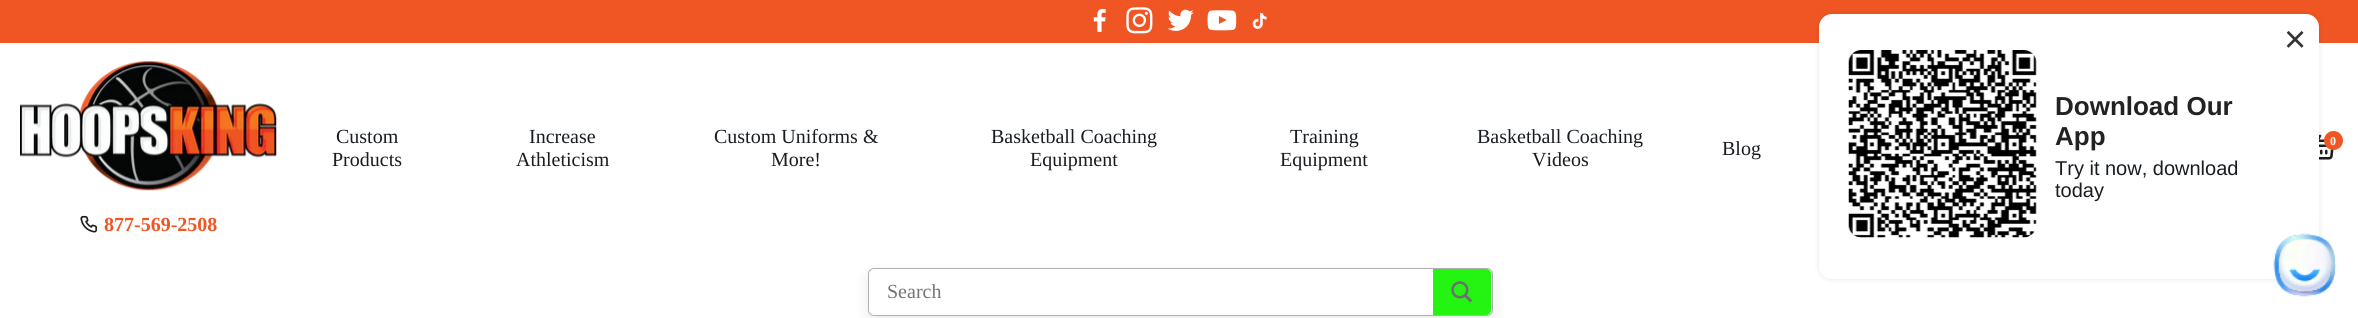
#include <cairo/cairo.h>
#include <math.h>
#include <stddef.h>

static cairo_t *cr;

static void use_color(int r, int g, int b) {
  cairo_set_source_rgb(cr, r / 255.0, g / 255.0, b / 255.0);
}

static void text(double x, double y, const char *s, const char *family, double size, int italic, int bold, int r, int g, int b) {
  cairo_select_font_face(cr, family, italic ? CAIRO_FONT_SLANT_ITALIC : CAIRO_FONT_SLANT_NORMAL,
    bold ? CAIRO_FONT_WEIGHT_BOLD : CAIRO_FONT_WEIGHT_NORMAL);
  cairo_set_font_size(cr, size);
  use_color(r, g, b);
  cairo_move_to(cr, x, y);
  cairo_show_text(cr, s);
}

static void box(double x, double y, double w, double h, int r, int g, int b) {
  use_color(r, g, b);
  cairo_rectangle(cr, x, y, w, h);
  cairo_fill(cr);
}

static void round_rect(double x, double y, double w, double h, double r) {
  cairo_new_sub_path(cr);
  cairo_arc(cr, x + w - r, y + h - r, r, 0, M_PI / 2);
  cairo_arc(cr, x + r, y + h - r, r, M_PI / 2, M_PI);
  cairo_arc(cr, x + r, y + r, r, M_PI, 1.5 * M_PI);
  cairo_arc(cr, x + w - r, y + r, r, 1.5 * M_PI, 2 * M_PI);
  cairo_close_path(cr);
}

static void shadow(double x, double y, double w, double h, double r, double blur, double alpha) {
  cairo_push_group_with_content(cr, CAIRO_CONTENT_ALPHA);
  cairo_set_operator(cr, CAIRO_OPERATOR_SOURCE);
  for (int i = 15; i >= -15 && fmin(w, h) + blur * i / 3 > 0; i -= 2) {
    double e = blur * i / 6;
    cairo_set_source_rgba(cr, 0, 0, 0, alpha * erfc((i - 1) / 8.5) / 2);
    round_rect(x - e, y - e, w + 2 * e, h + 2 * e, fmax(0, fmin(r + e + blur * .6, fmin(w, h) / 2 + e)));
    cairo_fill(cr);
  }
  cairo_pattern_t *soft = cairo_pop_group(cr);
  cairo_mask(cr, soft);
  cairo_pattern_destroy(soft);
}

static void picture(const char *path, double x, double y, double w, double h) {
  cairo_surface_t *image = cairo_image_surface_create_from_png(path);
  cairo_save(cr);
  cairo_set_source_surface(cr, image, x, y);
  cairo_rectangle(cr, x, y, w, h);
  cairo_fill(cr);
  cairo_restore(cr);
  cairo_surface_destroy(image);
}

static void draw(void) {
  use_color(255, 255, 255);
  cairo_paint(cr);
  box(0, 0, 2358, 43, 240, 86, 35);
  picture("img_07.png", 2319, 134, 15, 26);
  cairo_arc(cr, 2333.5, 140.5, 9.5, 0, 2 * M_PI);
  cairo_fill(cr);
  use_color(0, 0, 0);
  shadow(1818, 13, 502, 267, 14, 2.5, 0.08);
  use_color(255, 255, 255);
  round_rect(1819, 14, 500, 265, 13);
  cairo_fill(cr);
  picture("img_01.png", 1848, 50, 189, 188);
  picture("img_02.png", 1093, 8, 13, 24);
  picture("img_03.png", 1126, 7, 27, 27);
  picture("img_04.png", 1167, 9, 27, 22);
  picture("img_05.png", 1207, 10, 30, 21);
  picture("img_06.png", 1252, 12, 15, 17);
  picture("img_08.png", 20, 61, 257, 130);
  picture("img_09.png", 80, 215, 17, 18);
  use_color(0, 0, 0);
  shadow(868, 273, 625, 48, 6, 7.5, 0.08);
  use_color(255, 255, 255);
  round_rect(868.5, 268.5, 624, 47, 5.5);
  cairo_fill_preserve(cr);
  use_color(176, 176, 176);
  cairo_set_line_width(cr, 1);
  cairo_stroke(cr);
  use_color(35, 244, 18);
  cairo_new_path(cr);
  cairo_move_to(cr, 1433, 269);
  cairo_line_to(cr, 1486, 269);
  cairo_curve_to(cr, 1489, 269, 1491, 271, 1491, 274);
  cairo_line_to(cr, 1491, 310);
  cairo_curve_to(cr, 1491, 313, 1489, 315, 1486, 315);
  cairo_line_to(cr, 1433, 315);
  cairo_close_path(cr);
  cairo_fill(cr);
  picture("img_10.png", 1451, 281, 22, 22);
  picture("img_11.png", 2273, 233, 64, 64);
  text(2284, 52, "×", "Liberation Sans", 38, 0, 0, 51, 51, 51);
  text(2055, 115, "Download Our", "Liberation Sans", 26, 0, 1, 34, 34, 34);
  text(2055, 145, "App", "Liberation Sans", 26, 0, 1, 34, 34, 34);
  text(2055, 175, "Try it now, download", "Liberation Sans", 20, 0, 0, 25, 29, 33);
  text(2055, 197, "today", "Liberation Sans", 20, 0, 0, 25, 29, 33);
  text(336, 143, "Custom", "Liberation Serif", 20, 0, 0, 25, 29, 33);
  text(332, 166, "Products", "Liberation Serif", 20, 0, 0, 25, 29, 33);
  text(529, 143, "Increase", "Liberation Serif", 20, 0, 0, 25, 29, 33);
  text(516, 166, "Athleticism", "Liberation Serif", 20, 0, 0, 25, 29, 33);
  text(714, 143, "Custom Uniforms &", "Liberation Serif", 20, 0, 0, 25, 29, 33);
  text(771, 166, "More!", "Liberation Serif", 20, 0, 0, 25, 29, 33);
  text(991, 143, "Basketball Coaching", "Liberation Serif", 20, 0, 0, 25, 29, 33);
  text(1030, 166, "Equipment", "Liberation Serif", 20, 0, 0, 25, 29, 33);
  text(1290, 143, "Training", "Liberation Serif", 20, 0, 0, 25, 29, 33);
  text(1280, 166, "Equipment", "Liberation Serif", 20, 0, 0, 25, 29, 33);
  text(1477, 143, "Basketball Coaching", "Liberation Serif", 20, 0, 0, 25, 29, 33);
  text(1532, 166, "Videos", "Liberation Serif", 20, 0, 0, 25, 29, 33);
  text(1722, 155, "Blog", "Liberation Serif", 20, 0, 0, 25, 29, 33);
  text(2330, 145, "0", "Liberation Serif", 12, 0, 1, 255, 255, 255);
  text(104, 231, "877-569-2508", "Liberation Serif", 20, 0, 1, 240, 86, 35);
  text(887, 298, "Search", "Liberation Serif", 20, 0, 0, 117, 117, 117);
}

int main(void) {
  cairo_surface_t *surface = cairo_image_surface_create(CAIRO_FORMAT_RGB24, 2358, 318);
  cr = cairo_create(surface);
  cairo_font_options_t *options = cairo_font_options_create();
  cairo_font_options_set_hint_metrics(options, CAIRO_HINT_METRICS_OFF);
  cairo_font_options_set_hint_style(options, CAIRO_HINT_STYLE_NONE);
  cairo_set_font_options(cr, options);
  cairo_set_miter_limit(cr, 4);
  draw();
  cairo_surface_write_to_png(surface, "out.png");
  cairo_font_options_destroy(options);
  cairo_destroy(cr);
  cairo_surface_destroy(surface);
  return 0;
}
